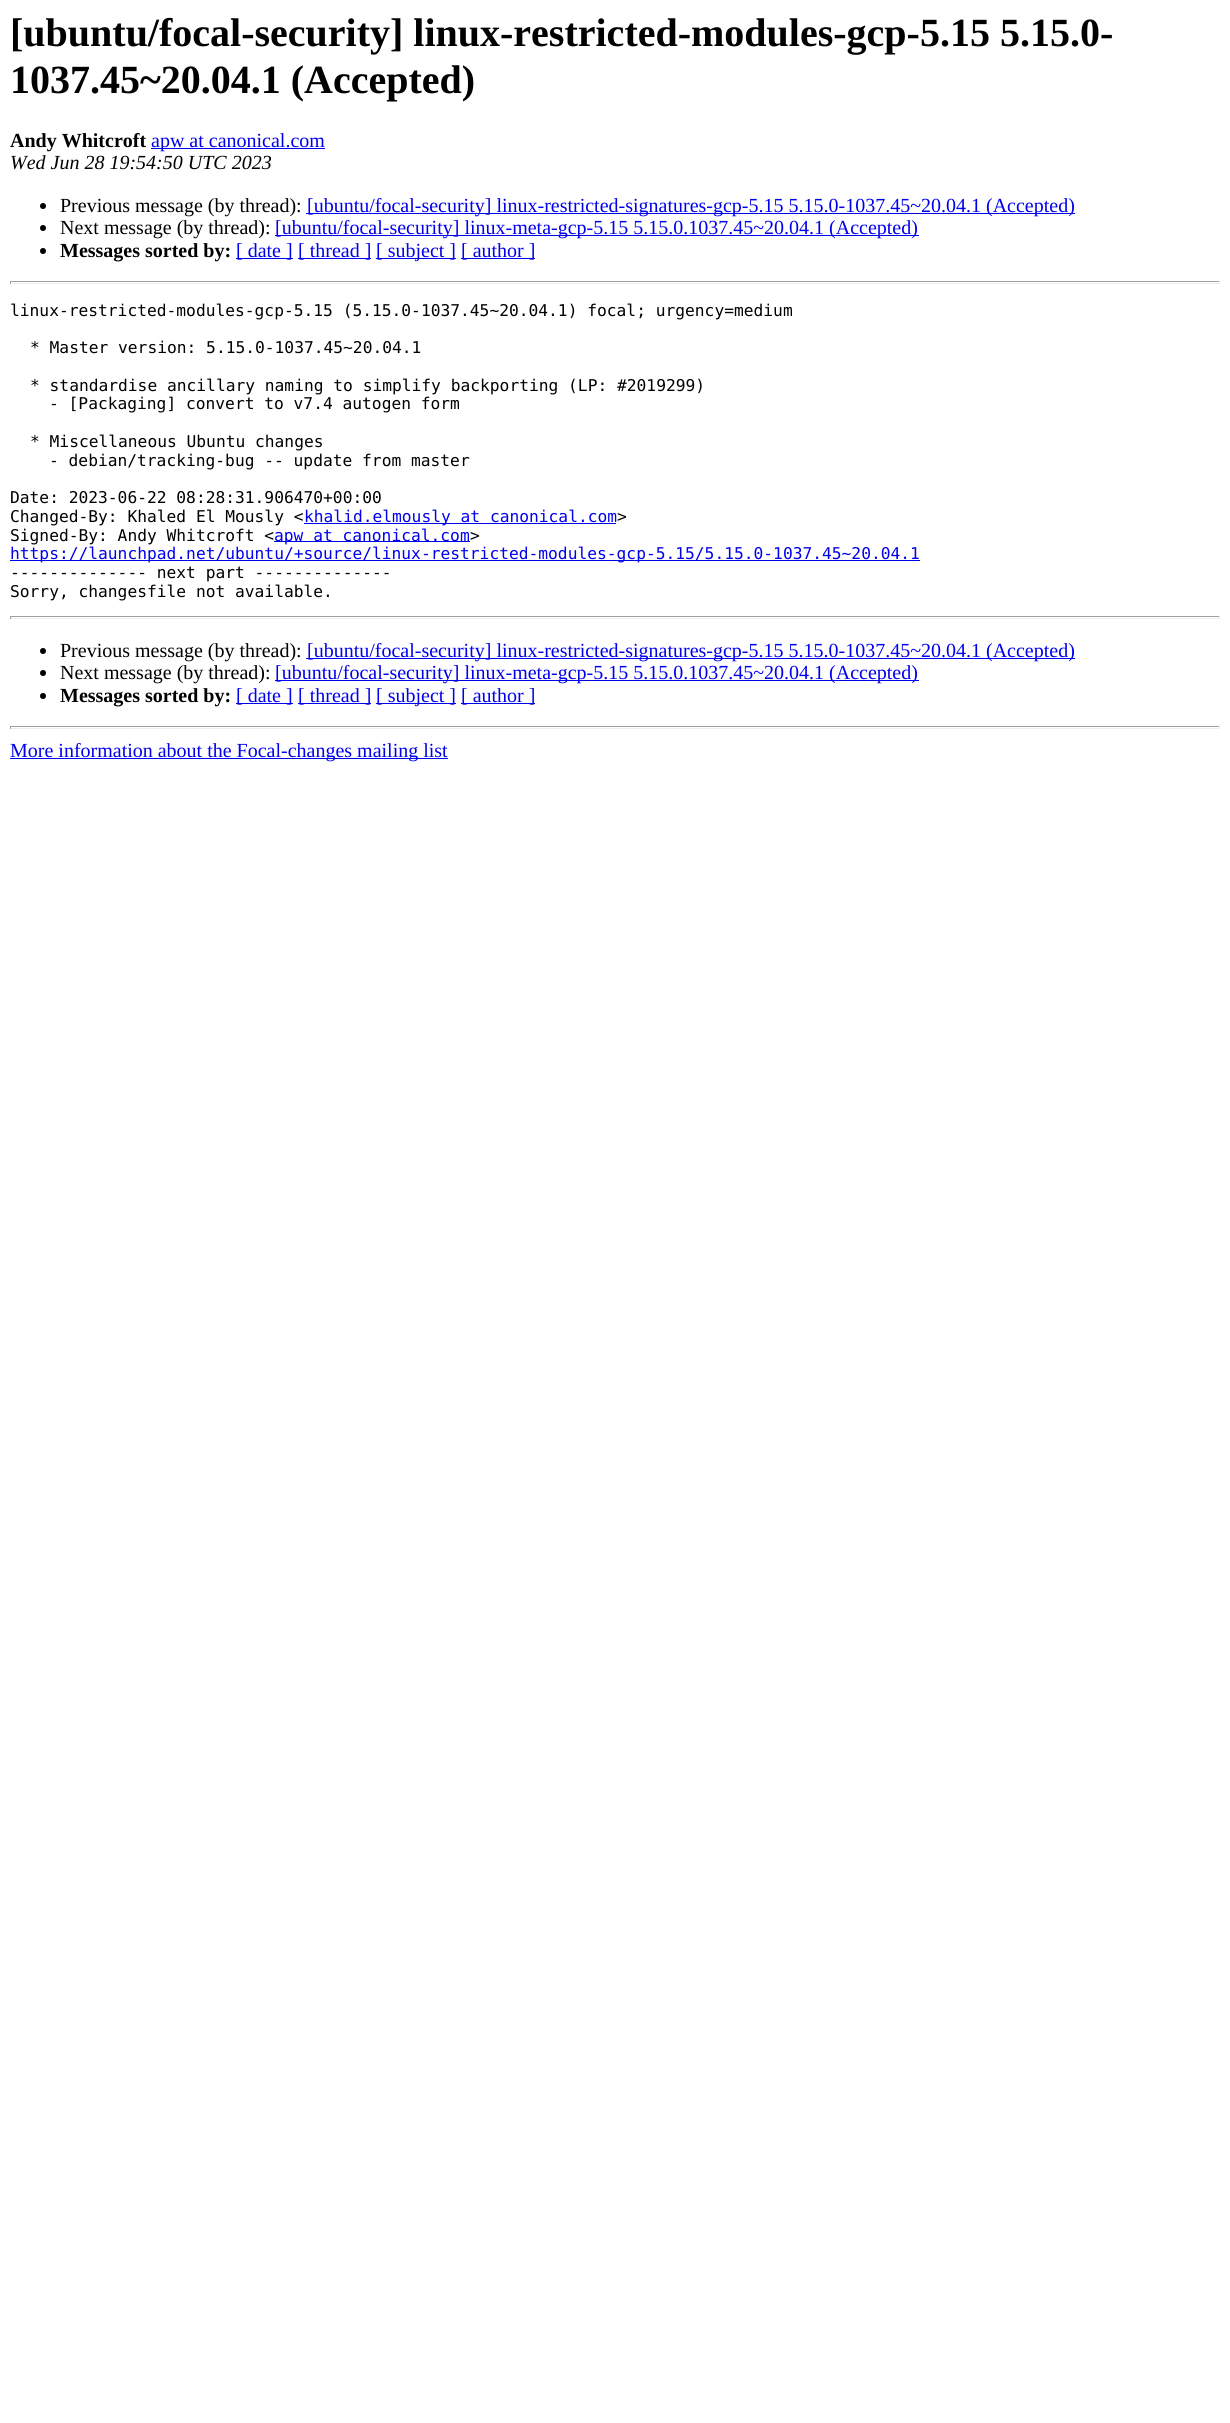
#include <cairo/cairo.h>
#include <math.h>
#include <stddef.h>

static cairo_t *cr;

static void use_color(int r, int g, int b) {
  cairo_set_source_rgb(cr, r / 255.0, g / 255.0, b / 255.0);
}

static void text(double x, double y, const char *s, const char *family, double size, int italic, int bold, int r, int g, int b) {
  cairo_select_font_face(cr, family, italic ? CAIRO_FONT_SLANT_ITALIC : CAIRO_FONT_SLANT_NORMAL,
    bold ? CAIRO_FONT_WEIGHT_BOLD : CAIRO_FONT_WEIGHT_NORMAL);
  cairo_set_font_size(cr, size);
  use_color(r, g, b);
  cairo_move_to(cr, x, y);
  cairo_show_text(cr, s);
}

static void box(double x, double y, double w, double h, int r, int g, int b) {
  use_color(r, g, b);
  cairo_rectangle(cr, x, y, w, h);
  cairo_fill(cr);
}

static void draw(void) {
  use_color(255, 255, 255);
  cairo_paint(cr);
  box(151, 148, 174, 1, 0, 0, 238);
  use_color(0, 0, 0);
  cairo_arc(cr, 43, 206, 3, 0, 2 * M_PI);
  cairo_fill(cr);
  box(306, 213, 769, 1, 0, 0, 238);
  use_color(0, 0, 0);
  cairo_arc(cr, 43, 228, 3, 0, 2 * M_PI);
  cairo_fill(cr);
  box(275, 235, 644, 1, 0, 0, 238);
  use_color(0, 0, 0);
  cairo_arc(cr, 43, 251, 3, 0, 2 * M_PI);
  cairo_fill(cr);
  box(236, 258, 57, 1, 0, 0, 238);
  box(298, 258, 73, 1, 0, 0, 238);
  box(376, 258, 80, 1, 0, 0, 238);
  box(461, 258, 74, 1, 0, 0, 238);
  box(10, 281, 1210, 1, 159, 159, 159);
  box(1219, 281, 1, 3, 238, 238, 238);
  box(10, 283, 1210, 1, 238, 238, 238);
  box(10, 281, 1, 3, 159, 159, 159);
  box(304, 523, 312, 1, 0, 0, 238);
  box(274, 541, 196, 1, 0, 0, 238);
  box(10, 560, 910, 1, 0, 0, 238);
  box(10, 616, 1210, 1, 159, 159, 159);
  box(1219, 616, 1, 3, 238, 238, 238);
  box(10, 618, 1210, 1, 238, 238, 238);
  box(10, 616, 1, 3, 159, 159, 159);
  use_color(0, 0, 0);
  cairo_arc(cr, 43, 651, 3, 0, 2 * M_PI);
  cairo_fill(cr);
  box(306, 658, 769, 1, 0, 0, 238);
  use_color(0, 0, 0);
  cairo_arc(cr, 43, 673, 3, 0, 2 * M_PI);
  cairo_fill(cr);
  box(275, 680, 644, 1, 0, 0, 238);
  use_color(0, 0, 0);
  cairo_arc(cr, 43, 696, 3, 0, 2 * M_PI);
  cairo_fill(cr);
  box(236, 703, 57, 1, 0, 0, 238);
  box(298, 703, 73, 1, 0, 0, 238);
  box(376, 703, 80, 1, 0, 0, 238);
  box(461, 703, 74, 1, 0, 0, 238);
  box(10, 726, 1210, 1, 159, 159, 159);
  box(1219, 726, 1, 3, 238, 238, 238);
  box(10, 728, 1210, 1, 238, 238, 238);
  box(10, 726, 1, 3, 159, 159, 159);
  box(10, 758, 438, 1, 0, 0, 238);
  text(10, 46, "[ubuntu/focal-security] linux-restricted-modules-gcp-5.15 5.15.0-", "Liberation Serif", 40, 0, 1, 0, 0, 0);
  text(10, 93, "1037.45~20.04.1 (Accepted)", "Liberation Serif", 40, 0, 1, 0, 0, 0);
  text(10, 147, "Andy Whitcroft", "Liberation Serif", 20, 0, 1, 0, 0, 0);
  text(151, 147, "apw at canonical.com", "Liberation Serif", 20, 0, 0, 0, 0, 238);
  text(10, 169, "Wed Jun 28 19:54:50 UTC 2023", "Liberation Serif", 20, 1, 0, 0, 0, 0);
  text(60, 212, "Previous message (by thread):", "Liberation Serif", 20, 0, 0, 0, 0, 0);
  text(307, 212, "[ubuntu/focal-security] linux-restricted-signatures-gcp-5.15 5.15.0-1037.45~20.04.1 (Accepted)", "Liberation Serif", 20, 0, 0, 0, 0, 238);
  text(60, 234, "Next message (by thread):", "Liberation Serif", 20, 0, 0, 0, 0, 0);
  text(275, 234, "[ubuntu/focal-security] linux-meta-gcp-5.15 5.15.0.1037.45~20.04.1 (Accepted)", "Liberation Serif", 20, 0, 0, 0, 0, 238);
  text(60, 257, "Messages sorted by:", "Liberation Serif", 20, 0, 1, 0, 0, 0);
  text(236, 257, "[ date ]", "Liberation Serif", 20, 0, 0, 0, 0, 238);
  text(298, 257, "[ thread ]", "Liberation Serif", 20, 0, 0, 0, 0, 238);
  text(376, 257, "[ subject ]", "Liberation Serif", 20, 0, 0, 0, 0, 238);
  text(461, 257, "[ author ]", "Liberation Serif", 20, 0, 0, 0, 0, 238);
  text(10, 316, "linux-restricted-modules-gcp-5.15 (5.15.0-1037.45~20.04.1) focal; urgency=medium", "DejaVu Sans Mono", 16.25, 0, 0, 0, 0, 0);
  text(30, 353, "* Master version: 5.15.0-1037.45~20.04.1", "DejaVu Sans Mono", 16.25, 0, 0, 0, 0, 0);
  text(30, 391, "* standardise ancillary naming to simplify backporting (LP: #2019299)", "DejaVu Sans Mono", 16.25, 0, 0, 0, 0, 0);
  text(49, 409, "- [Packaging] convert to v7.4 autogen form", "DejaVu Sans Mono", 16.25, 0, 0, 0, 0, 0);
  text(30, 447, "* Miscellaneous Ubuntu changes", "DejaVu Sans Mono", 16.25, 0, 0, 0, 0, 0);
  text(49, 466, "- debian/tracking-bug -- update from master", "DejaVu Sans Mono", 16.25, 0, 0, 0, 0, 0);
  text(10, 503, "Date: 2023-06-22 08:28:31.906470+00:00", "DejaVu Sans Mono", 16.25, 0, 0, 0, 0, 0);
  text(10, 522, "Changed-By: Khaled El Mously <", "DejaVu Sans Mono", 16.25, 0, 0, 0, 0, 0);
  text(304, 522, "khalid.elmously at canonical.com", "DejaVu Sans Mono", 16.25, 0, 0, 0, 0, 238);
  text(617, 522, ">", "DejaVu Sans Mono", 16.25, 0, 0, 0, 0, 0);
  text(10, 541, "Signed-By: Andy Whitcroft <", "DejaVu Sans Mono", 16.25, 0, 0, 0, 0, 0);
  text(274, 541, "apw at canonical.com", "DejaVu Sans Mono", 16.25, 0, 0, 0, 0, 238);
  text(470, 541, ">", "DejaVu Sans Mono", 16.25, 0, 0, 0, 0, 0);
  text(10, 559, "https://launchpad.net/ubuntu/+source/linux-restricted-modules-gcp-5.15/5.15.0-1037.45~20.04.1", "DejaVu Sans Mono", 16.25, 0, 0, 0, 0, 238);
  text(10, 578, "-------------- next part --------------", "DejaVu Sans Mono", 16.25, 0, 0, 0, 0, 0);
  text(10, 597, "Sorry, changesfile not available.", "DejaVu Sans Mono", 16.25, 0, 0, 0, 0, 0);
  text(60, 657, "Previous message (by thread):", "Liberation Serif", 20, 0, 0, 0, 0, 0);
  text(307, 657, "[ubuntu/focal-security] linux-restricted-signatures-gcp-5.15 5.15.0-1037.45~20.04.1 (Accepted)", "Liberation Serif", 20, 0, 0, 0, 0, 238);
  text(60, 679, "Next message (by thread):", "Liberation Serif", 20, 0, 0, 0, 0, 0);
  text(275, 679, "[ubuntu/focal-security] linux-meta-gcp-5.15 5.15.0.1037.45~20.04.1 (Accepted)", "Liberation Serif", 20, 0, 0, 0, 0, 238);
  text(60, 702, "Messages sorted by:", "Liberation Serif", 20, 0, 1, 0, 0, 0);
  text(236, 702, "[ date ]", "Liberation Serif", 20, 0, 0, 0, 0, 238);
  text(298, 702, "[ thread ]", "Liberation Serif", 20, 0, 0, 0, 0, 238);
  text(376, 702, "[ subject ]", "Liberation Serif", 20, 0, 0, 0, 0, 238);
  text(461, 702, "[ author ]", "Liberation Serif", 20, 0, 0, 0, 0, 238);
  text(10, 757, "More information about the Focal-changes mailing list", "Liberation Serif", 20, 0, 0, 0, 0, 238);
}

int main(void) {
  cairo_surface_t *surface = cairo_image_surface_create(CAIRO_FORMAT_RGB24, 1230, 2423);
  cr = cairo_create(surface);
  cairo_font_options_t *options = cairo_font_options_create();
  cairo_font_options_set_hint_metrics(options, CAIRO_HINT_METRICS_OFF);
  cairo_font_options_set_hint_style(options, CAIRO_HINT_STYLE_NONE);
  cairo_set_font_options(cr, options);
  cairo_set_miter_limit(cr, 4);
  draw();
  cairo_surface_write_to_png(surface, "out.png");
  cairo_font_options_destroy(options);
  cairo_destroy(cr);
  cairo_surface_destroy(surface);
  return 0;
}
